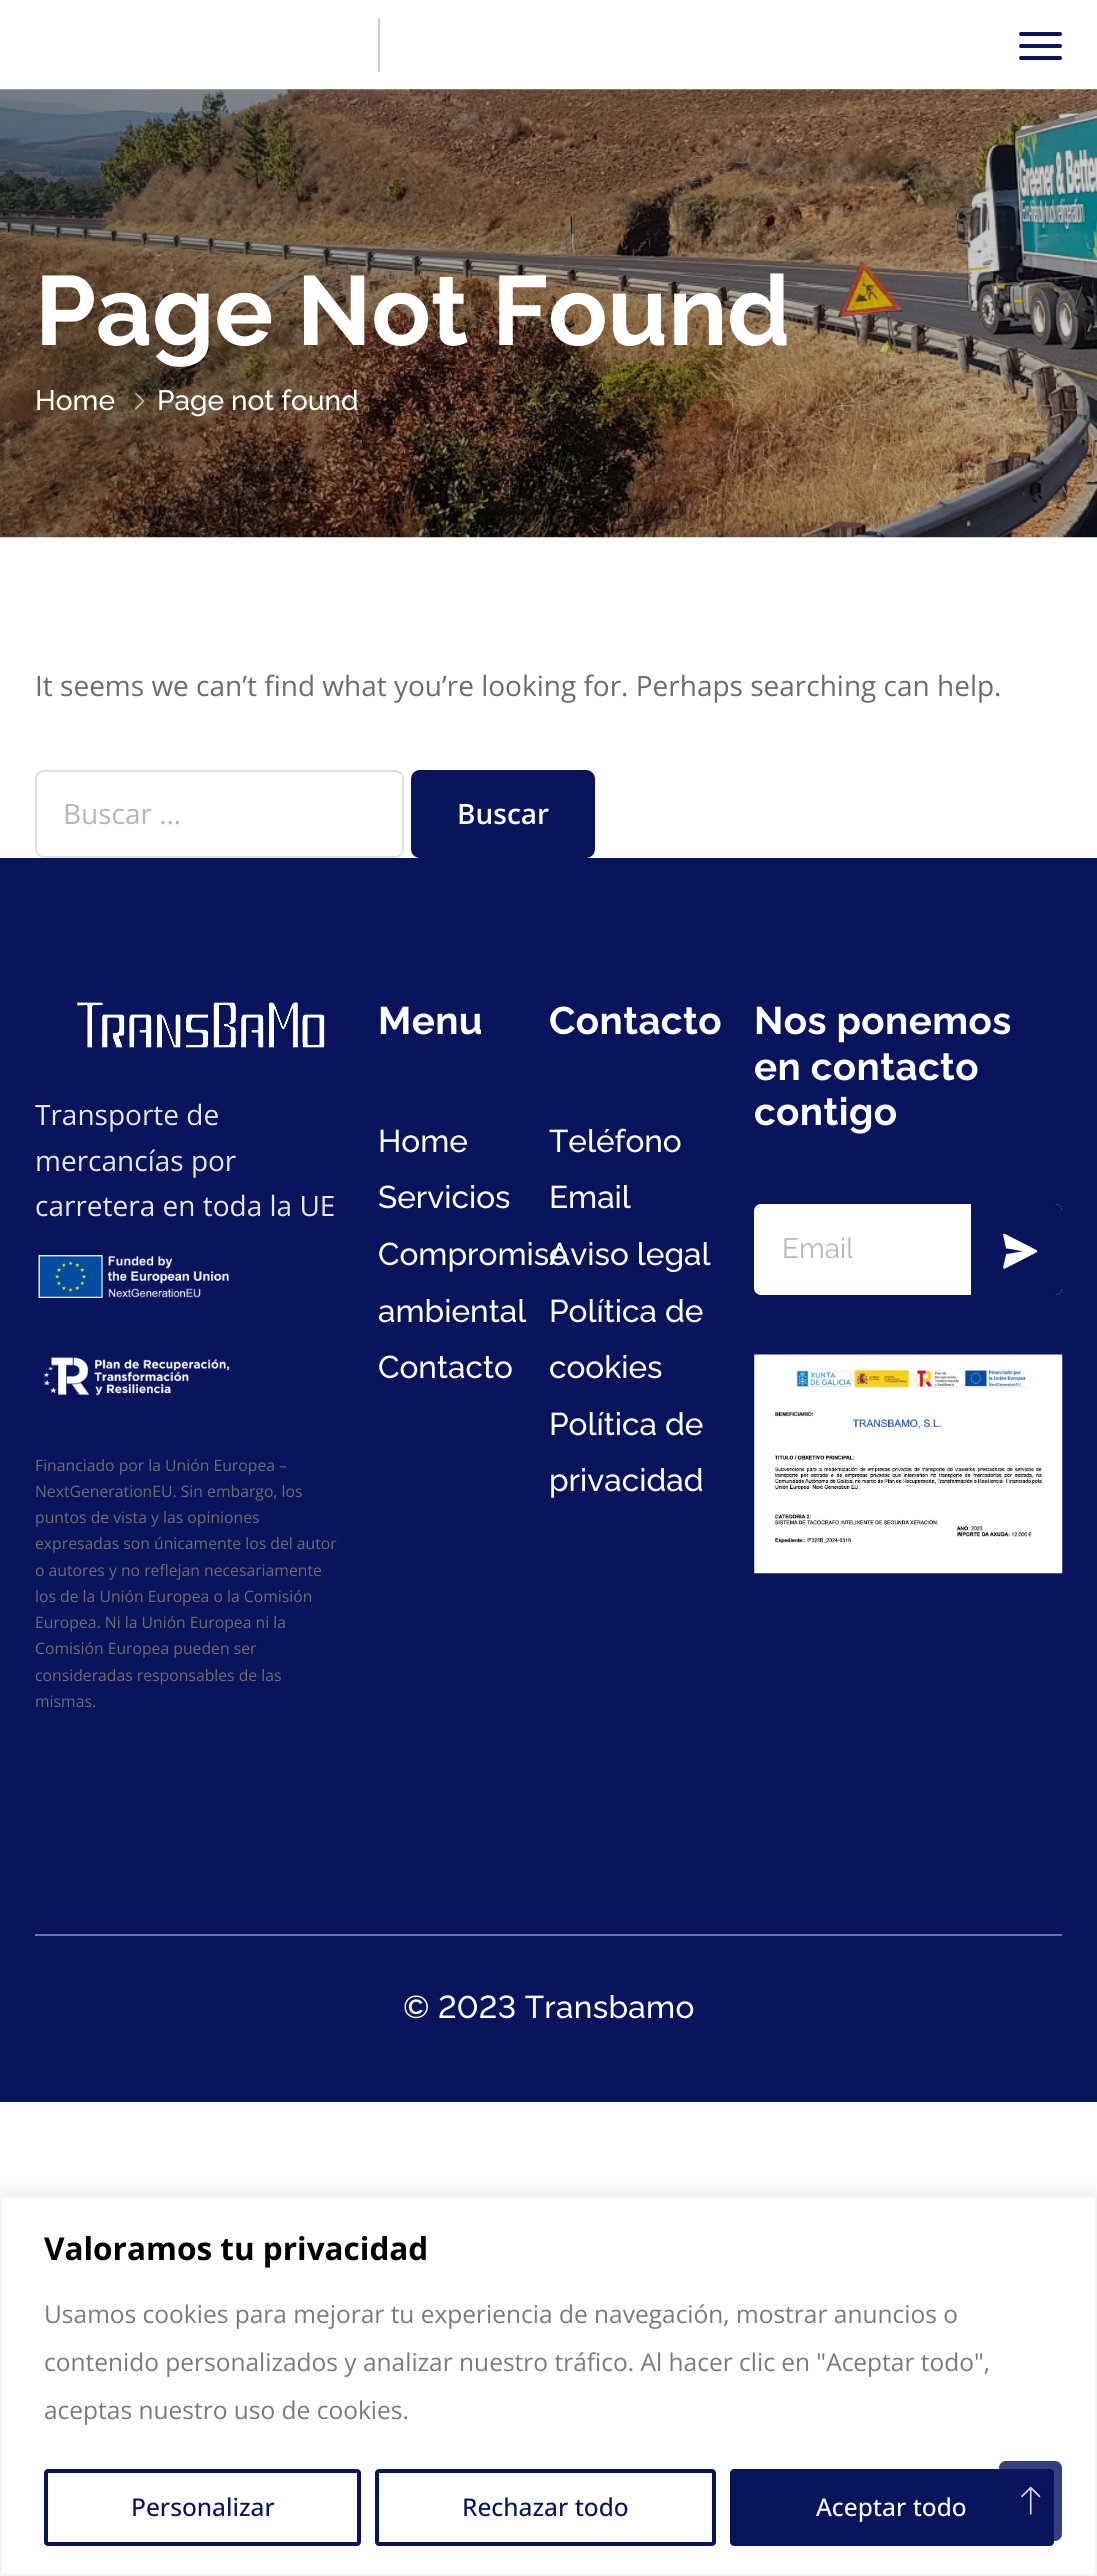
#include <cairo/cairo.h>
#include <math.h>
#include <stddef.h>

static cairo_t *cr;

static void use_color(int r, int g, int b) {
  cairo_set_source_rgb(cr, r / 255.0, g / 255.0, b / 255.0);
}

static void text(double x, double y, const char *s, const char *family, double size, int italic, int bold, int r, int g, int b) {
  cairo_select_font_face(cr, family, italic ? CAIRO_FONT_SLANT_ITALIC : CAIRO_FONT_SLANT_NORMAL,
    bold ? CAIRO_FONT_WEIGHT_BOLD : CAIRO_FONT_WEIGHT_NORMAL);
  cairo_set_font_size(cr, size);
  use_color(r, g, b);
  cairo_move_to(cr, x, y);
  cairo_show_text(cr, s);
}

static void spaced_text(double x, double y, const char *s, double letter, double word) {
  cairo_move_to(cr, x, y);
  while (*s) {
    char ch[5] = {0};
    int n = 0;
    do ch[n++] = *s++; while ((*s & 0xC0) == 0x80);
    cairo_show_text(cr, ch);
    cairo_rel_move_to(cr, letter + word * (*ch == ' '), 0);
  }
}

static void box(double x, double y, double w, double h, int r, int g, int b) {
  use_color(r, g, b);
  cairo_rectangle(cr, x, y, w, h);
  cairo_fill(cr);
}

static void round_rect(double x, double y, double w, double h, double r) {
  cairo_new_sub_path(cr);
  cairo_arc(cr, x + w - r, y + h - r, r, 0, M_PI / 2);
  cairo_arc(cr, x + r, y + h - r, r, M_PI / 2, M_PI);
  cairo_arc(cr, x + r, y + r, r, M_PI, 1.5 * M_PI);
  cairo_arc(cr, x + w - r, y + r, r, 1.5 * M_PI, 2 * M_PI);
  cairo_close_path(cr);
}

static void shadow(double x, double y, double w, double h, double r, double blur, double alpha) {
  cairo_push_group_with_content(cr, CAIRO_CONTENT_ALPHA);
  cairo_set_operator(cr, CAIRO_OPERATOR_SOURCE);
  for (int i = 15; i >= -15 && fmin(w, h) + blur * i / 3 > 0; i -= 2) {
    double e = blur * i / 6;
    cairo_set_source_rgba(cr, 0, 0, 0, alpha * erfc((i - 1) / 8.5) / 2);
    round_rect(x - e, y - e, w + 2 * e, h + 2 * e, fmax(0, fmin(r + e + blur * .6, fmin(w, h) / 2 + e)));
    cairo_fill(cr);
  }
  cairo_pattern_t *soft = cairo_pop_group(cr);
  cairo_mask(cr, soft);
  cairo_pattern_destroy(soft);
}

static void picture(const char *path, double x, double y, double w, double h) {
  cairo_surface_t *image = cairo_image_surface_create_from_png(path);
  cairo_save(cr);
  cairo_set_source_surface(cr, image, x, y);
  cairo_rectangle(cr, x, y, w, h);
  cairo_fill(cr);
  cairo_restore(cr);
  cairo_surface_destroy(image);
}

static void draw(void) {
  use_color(255, 255, 255);
  cairo_paint(cr);
  box(378, 18, 2, 54, 206, 206, 206);
  use_color(8, 20, 92);
  round_rect(1019, 32, 43, 4, 2);
  cairo_fill(cr);
  round_rect(1019, 44, 43, 4, 2);
  cairo_fill(cr);
  round_rect(1019, 56, 43, 4, 2);
  cairo_fill(cr);
  picture("img_01.png", 0, 89, 1097, 449);
  picture("img_02.png", 135, 392, 10, 18);
  round_rect(36, 771, 367, 86, 8);
  use_color(224, 224, 224);
  cairo_stroke(cr);
  use_color(8, 20, 92);
  round_rect(412, 771, 182, 86, 8);
  cairo_fill_preserve(cr);
  cairo_stroke(cr);
  box(0, 858, 1097, 1244, 8, 20, 92);
  picture("img_03.png", 77, 1002, 248, 46);
  picture("img_04.png", 38, 1255, 191, 43);
  picture("img_05.png", 43, 1357, 187, 39);
  use_color(255, 255, 255);
  round_rect(754, 1204, 308, 91, 7);
  cairo_fill(cr);
  use_color(8, 20, 92);
  cairo_new_path(cr);
  cairo_move_to(cr, 972, 1205);
  cairo_line_to(cr, 1055, 1205);
  cairo_curve_to(cr, 1058.5, 1205, 1061, 1207.5, 1061, 1211);
  cairo_line_to(cr, 1061, 1288);
  cairo_curve_to(cr, 1061, 1291.5, 1058.5, 1294, 1055, 1294);
  cairo_line_to(cr, 972, 1294);
  cairo_close_path(cr);
  cairo_fill_preserve(cr);
  cairo_stroke(cr);
  picture("img_06.png", 1003, 1233, 35, 36);
  picture("img_07.png", 754, 1354, 309, 220);
  box(35, 1934, 1027, 2, 107, 114, 157);
  use_color(172, 171, 171);
  shadow(0, 2195, 1097, 379, 0, 9, 0.3);
  use_color(255, 255, 255);
  cairo_rectangle(cr, 1, 2197, 1095, 378);
  cairo_fill_preserve(cr);
  use_color(244, 244, 244);
  cairo_stroke(cr);
  round_rect(46, 2471, 313, 73, 2);
  use_color(8, 20, 92);
  cairo_set_line_width(cr, 4);
  cairo_stroke(cr);
  round_rect(377, 2471, 337, 73, 2);
  cairo_stroke(cr);
  round_rect(732, 2471, 320, 73, 2);
  cairo_fill_preserve(cr);
  cairo_stroke(cr);
  cairo_set_source_rgba(cr, 0.031, 0.078, 0.361, 0.81);
  round_rect(999, 2461, 63, 80, 7);
  cairo_fill(cr);
  picture("img_08.png", 1021, 2486, 20, 29);
  text(35, 345, "Page Not Found", "Raleway", 98, 0, 1, 255, 255, 255);
  text(35, 410, "Home", "Raleway Medium", 28, 0, 0, 255, 255, 255);
  text(157, 410, "Page not found", "Raleway Medium", 28, 0, 0, 255, 255, 255);
  text(35, 696, "It seems we can’t find what you’re looking for. Perhaps searching can help.", "Open Sans", 28, 0, 0, 108, 108, 108);
  text(63, 824, "Buscar …", "Open Sans", 28, 0, 0, 182, 182, 182);
  text(457, 824, "Buscar", "Open Sans SemiBold", 28, 0, 0, 255, 255, 255);
  text(35, 1125, "Transporte de", "Open Sans", 28, 0, 0, 231, 231, 231);
  text(35, 1171, "mercancías por", "Open Sans", 28, 0, 0, 231, 231, 231);
  text(35, 1216, "carretera en toda la UE", "Open Sans", 28, 0, 0, 231, 231, 231);
  text(35, 1471, "Financiado por la Unión Europea –", "Open Sans", 15.75, 0, 0, 108, 108, 108);
  text(35, 1497, "NextGenerationEU. Sin embargo, los", "Open Sans", 15.75, 0, 0, 108, 108, 108);
  text(35, 1523, "puntos de vista y las opiniones", "Open Sans", 15.75, 0, 0, 108, 108, 108);
  text(35, 1549, "expresadas son únicamente los del autor", "Open Sans", 15.75, 0, 0, 108, 108, 108);
  text(35, 1576, "o autores y no reflejan necesariamente", "Open Sans", 15.75, 0, 0, 108, 108, 108);
  text(35, 1602, "los de la Unión Europea o la Comisión", "Open Sans", 15.75, 0, 0, 108, 108, 108);
  text(35, 1628, "Europea. Ni la Unión Europea ni la", "Open Sans", 15.75, 0, 0, 108, 108, 108);
  text(35, 1654, "Comisión Europea pueden ser", "Open Sans", 15.75, 0, 0, 108, 108, 108);
  text(35, 1681, "consideradas responsables de las", "Open Sans", 15.75, 0, 0, 108, 108, 108);
  text(35, 1707, "mismas.", "Open Sans", 15.75, 0, 0, 108, 108, 108);
  cairo_select_font_face(cr, "Raleway", CAIRO_FONT_SLANT_NORMAL, CAIRO_FONT_WEIGHT_BOLD);
  cairo_set_font_size(cr, 38.5);
  use_color(255, 255, 255);
  spaced_text(378, 1034, "Menu", 0.4, 0);
  text(378, 1152, "Home", "Raleway Medium", 31.5, 0, 0, 255, 255, 255);
  text(378, 1208, "Servicios", "Raleway Medium", 31.5, 0, 0, 255, 255, 255);
  text(378, 1265, "Compromiso", "Raleway Medium", 31.5, 0, 0, 255, 255, 255);
  text(378, 1322, "ambiental", "Raleway Medium", 31.5, 0, 0, 255, 255, 255);
  text(378, 1378, "Contacto", "Raleway Medium", 31.5, 0, 0, 255, 255, 255);
  cairo_select_font_face(cr, "Raleway", CAIRO_FONT_SLANT_NORMAL, CAIRO_FONT_WEIGHT_BOLD);
  cairo_set_font_size(cr, 38.5);
  spaced_text(549, 1034, "Contacto", 0.4, 0);
  text(549, 1152, "Teléfono", "Raleway Medium", 31.5, 0, 0, 255, 255, 255);
  text(549, 1208, "Email", "Raleway Medium", 31.5, 0, 0, 255, 255, 255);
  text(549, 1265, "Aviso legal", "Raleway Medium", 31.5, 0, 0, 255, 255, 255);
  text(549, 1322, "Política de", "Raleway Medium", 31.5, 0, 0, 255, 255, 255);
  text(549, 1378, "cookies", "Raleway Medium", 31.5, 0, 0, 255, 255, 255);
  text(549, 1435, "Política de", "Raleway Medium", 31.5, 0, 0, 255, 255, 255);
  text(549, 1491, "privacidad", "Raleway Medium", 31.5, 0, 0, 255, 255, 255);
  cairo_select_font_face(cr, "Raleway", CAIRO_FONT_SLANT_NORMAL, CAIRO_FONT_WEIGHT_BOLD);
  cairo_set_font_size(cr, 38.5);
  spaced_text(754, 1034, "Nos ponemos", 0.4, 0);
  spaced_text(754, 1080, "en contacto", 0.4, 0);
  spaced_text(754, 1125, "contigo", 0.4, 0);
  cairo_save(cr);
  cairo_rectangle(cr, 782, 1232, 70, 33);
  cairo_clip(cr);
  text(782, 1258, "Email", "Raleway", 28, 0, 0, 182, 182, 182);
  cairo_restore(cr);
  cairo_select_font_face(cr, "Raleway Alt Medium", CAIRO_FONT_SLANT_NORMAL, CAIRO_FONT_WEIGHT_NORMAL);
  cairo_set_font_size(cr, 31.5);
  spaced_text(403, 2018, "© 2023 Transbamo", 0.3, 0);
  text(44, 2260, "Valoramos tu privacidad", "Open Sans", 31.5, 0, 1, 0, 0, 0);
  text(44, 2323, "Usamos cookies para mejorar tu experiencia de navegación, mostrar anuncios o", "Open Sans", 24.5, 0, 0, 122, 122, 122);
  text(44, 2371, "contenido personalizados y analizar nuestro tráfico. Al hacer clic en \"Aceptar todo\",", "Open Sans", 24.5, 0, 0, 122, 122, 122);
  text(44, 2419, "aceptas nuestro uso de cookies.", "Open Sans", 24.5, 0, 0, 122, 122, 122);
  text(131, 2516, "Personalizar", "Open Sans Medium", 24.5, 0, 0, 8, 20, 92);
  text(462, 2516, "Rechazar todo", "Open Sans Medium", 24.5, 0, 0, 8, 20, 92);
  text(816, 2516, "Aceptar todo", "Open Sans Medium", 24.5, 0, 0, 255, 255, 255);
}

int main(void) {
  cairo_surface_t *surface = cairo_image_surface_create(CAIRO_FORMAT_RGB24, 1097, 2576);
  cr = cairo_create(surface);
  cairo_font_options_t *options = cairo_font_options_create();
  cairo_font_options_set_hint_metrics(options, CAIRO_HINT_METRICS_OFF);
  cairo_font_options_set_hint_style(options, CAIRO_HINT_STYLE_NONE);
  cairo_set_font_options(cr, options);
  cairo_set_miter_limit(cr, 4);
  draw();
  cairo_surface_write_to_png(surface, "out.png");
  cairo_font_options_destroy(options);
  cairo_destroy(cr);
  cairo_surface_destroy(surface);
  return 0;
}
